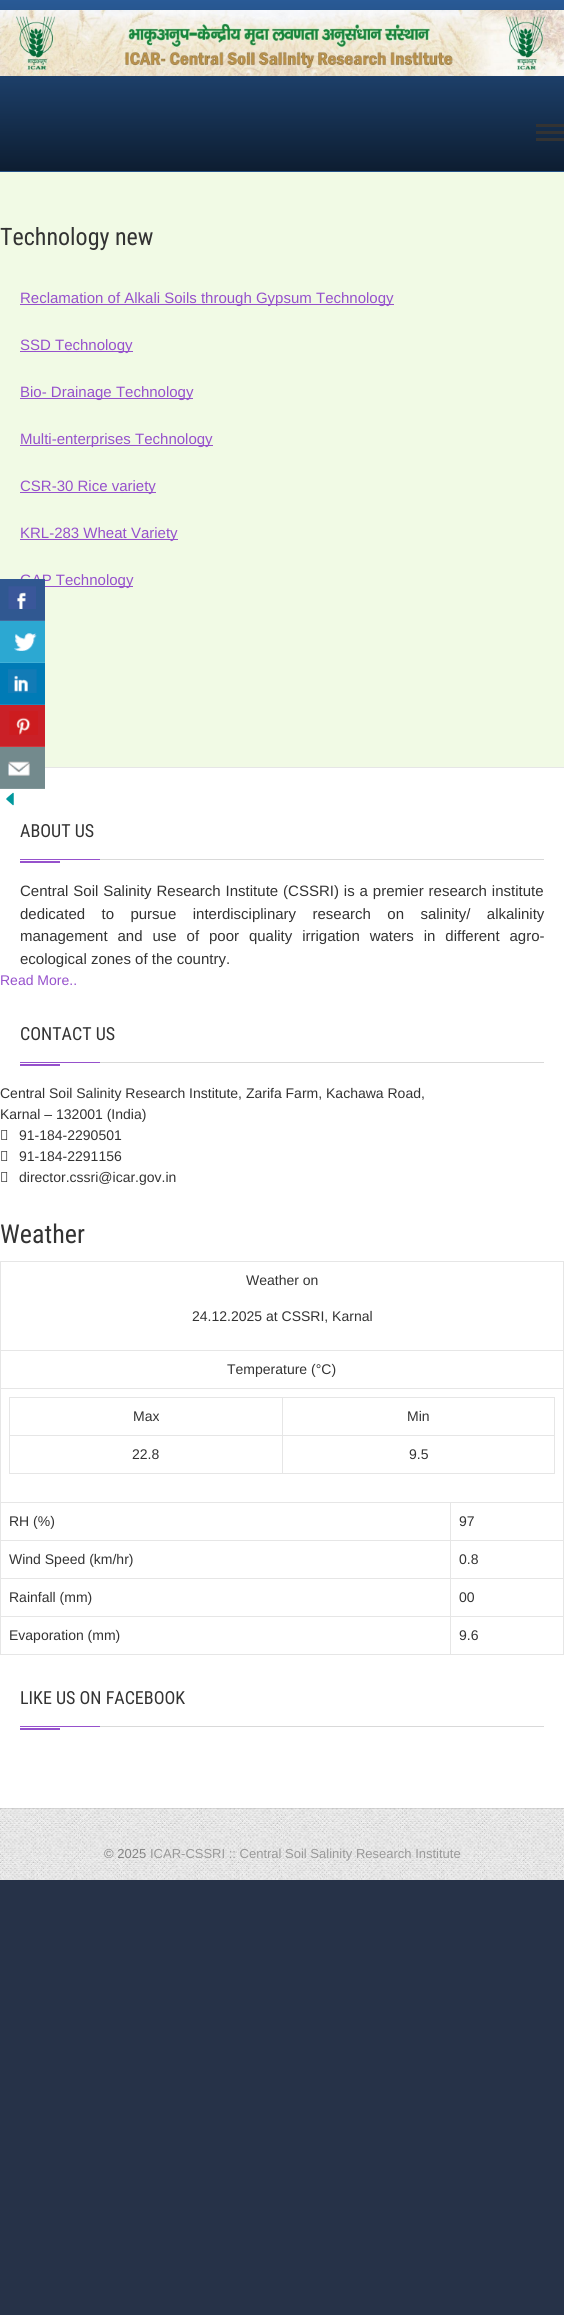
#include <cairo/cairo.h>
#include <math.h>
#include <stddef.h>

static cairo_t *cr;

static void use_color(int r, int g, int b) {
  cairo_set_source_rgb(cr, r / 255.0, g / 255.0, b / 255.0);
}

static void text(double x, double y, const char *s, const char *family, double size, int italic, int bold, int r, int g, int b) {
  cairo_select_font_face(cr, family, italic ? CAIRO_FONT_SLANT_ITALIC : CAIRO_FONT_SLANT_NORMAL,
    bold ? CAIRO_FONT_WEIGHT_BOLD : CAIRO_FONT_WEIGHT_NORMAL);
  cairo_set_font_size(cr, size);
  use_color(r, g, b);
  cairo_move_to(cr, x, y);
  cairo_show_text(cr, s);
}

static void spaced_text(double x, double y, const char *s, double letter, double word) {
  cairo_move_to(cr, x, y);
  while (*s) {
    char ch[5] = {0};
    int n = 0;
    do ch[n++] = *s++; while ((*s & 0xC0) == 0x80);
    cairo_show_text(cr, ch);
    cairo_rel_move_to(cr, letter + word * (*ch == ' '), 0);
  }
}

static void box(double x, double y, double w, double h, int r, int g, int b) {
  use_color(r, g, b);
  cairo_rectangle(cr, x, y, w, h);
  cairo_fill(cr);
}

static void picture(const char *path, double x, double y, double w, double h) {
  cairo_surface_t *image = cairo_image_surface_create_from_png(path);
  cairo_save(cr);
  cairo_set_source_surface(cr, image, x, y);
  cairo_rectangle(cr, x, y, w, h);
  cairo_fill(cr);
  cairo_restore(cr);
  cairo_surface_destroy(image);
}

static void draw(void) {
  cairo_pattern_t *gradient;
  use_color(38, 50, 72);
  cairo_paint(cr);
  box(0, 768, 564, 1040, 255, 255, 255);
  gradient = cairo_pattern_create_linear(282, 171, 282, 0);
  cairo_pattern_add_color_stop_rgba(gradient, 0, 0.051, 0.114, 0.192, 1);
  cairo_pattern_add_color_stop_rgba(gradient, 1, 0.161, 0.353, 0.588, 1);
  cairo_set_source(cr, gradient);
  cairo_pattern_destroy(gradient);
  cairo_rectangle(cr, 0, 0, 564, 171);
  cairo_fill(cr);
  box(0, 171, 564, 1, 37, 81, 135);
  picture("img_01.png", 0, 10, 564, 66);
  box(536, 124, 28, 3, 51, 51, 51);
  box(536, 131, 28, 3, 51, 51, 51);
  box(536, 138, 28, 3, 51, 51, 51);
  box(0, 172, 564, 595, 241, 250, 229);
  box(20, 304, 374, 1, 150, 81, 204);
  box(20, 351, 113, 1, 150, 81, 204);
  box(20, 398, 173, 1, 150, 81, 204);
  box(20, 445, 193, 1, 150, 81, 204);
  box(20, 492, 136, 1, 150, 81, 204);
  box(20, 539, 158, 1, 150, 81, 204);
  box(45, 586, 88, 1, 150, 81, 204);
  box(45, 767, 519, 1, 230, 230, 230);
  box(100, 859, 444, 1, 217, 217, 217);
  box(20, 859, 80, 1, 150, 81, 204);
  box(20, 861, 40, 2, 150, 81, 204);
  box(100, 1062, 444, 1, 217, 217, 217);
  box(20, 1062, 80, 1, 150, 81, 204);
  box(20, 1064, 40, 2, 150, 81, 204);
  picture("img_02.png", 1, 1130, 7, 10);
  picture("img_02.png", 1, 1151, 7, 10);
  picture("img_02.png", 1, 1172, 7, 10);
  use_color(230, 230, 230);
  cairo_new_path(cr);
  cairo_move_to(cr, 0, 1261);
  cairo_line_to(cr, 564, 1261);
  cairo_line_to(cr, 564, 1262);
  cairo_line_to(cr, 1, 1262);
  cairo_close_path(cr);
  cairo_fill(cr);
  cairo_set_source_rgba(cr, 0, 0, 0, 0.1);
  cairo_new_path(cr);
  cairo_move_to(cr, 0, 1655);
  cairo_line_to(cr, 0, 1261);
  cairo_line_to(cr, 1, 1262);
  cairo_line_to(cr, 1, 1655);
  cairo_close_path(cr);
  cairo_fill(cr);
  use_color(230, 230, 230);
  cairo_new_path(cr);
  cairo_move_to(cr, 564, 1262);
  cairo_line_to(cr, 564, 1351);
  cairo_line_to(cr, 563, 1350);
  cairo_line_to(cr, 563, 1262);
  cairo_close_path(cr);
  cairo_fill(cr);
  cairo_set_source_rgba(cr, 0, 0, 0, 0.1);
  cairo_new_path(cr);
  cairo_move_to(cr, 564, 1351);
  cairo_line_to(cr, 1, 1351);
  cairo_line_to(cr, 1, 1350);
  cairo_line_to(cr, 563, 1350);
  cairo_close_path(cr);
  cairo_fill(cr);
  use_color(230, 230, 230);
  cairo_new_path(cr);
  cairo_move_to(cr, 564, 1351);
  cairo_line_to(cr, 564, 1389);
  cairo_line_to(cr, 563, 1388);
  cairo_line_to(cr, 563, 1351);
  cairo_close_path(cr);
  cairo_fill(cr);
  cairo_set_source_rgba(cr, 0, 0, 0, 0.1);
  cairo_new_path(cr);
  cairo_move_to(cr, 564, 1389);
  cairo_line_to(cr, 1, 1389);
  cairo_line_to(cr, 1, 1388);
  cairo_line_to(cr, 563, 1388);
  cairo_close_path(cr);
  cairo_fill(cr);
  use_color(230, 230, 230);
  cairo_new_path(cr);
  cairo_move_to(cr, 564, 1389);
  cairo_line_to(cr, 564, 1503);
  cairo_line_to(cr, 563, 1502);
  cairo_line_to(cr, 563, 1389);
  cairo_close_path(cr);
  cairo_fill(cr);
  cairo_set_source_rgba(cr, 0, 0, 0, 0.1);
  cairo_new_path(cr);
  cairo_move_to(cr, 564, 1503);
  cairo_line_to(cr, 1, 1503);
  cairo_line_to(cr, 1, 1502);
  cairo_line_to(cr, 563, 1502);
  cairo_close_path(cr);
  cairo_fill(cr);
  use_color(230, 230, 230);
  cairo_new_path(cr);
  cairo_move_to(cr, 9, 1397);
  cairo_line_to(cr, 555, 1397);
  cairo_line_to(cr, 555, 1398);
  cairo_line_to(cr, 10, 1398);
  cairo_close_path(cr);
  cairo_fill(cr);
  cairo_set_source_rgba(cr, 0, 0, 0, 0.1);
  cairo_new_path(cr);
  cairo_move_to(cr, 9, 1474);
  cairo_line_to(cr, 9, 1397);
  cairo_line_to(cr, 10, 1398);
  cairo_line_to(cr, 10, 1474);
  cairo_close_path(cr);
  cairo_fill(cr);
  use_color(230, 230, 230);
  cairo_new_path(cr);
  cairo_move_to(cr, 283, 1398);
  cairo_line_to(cr, 283, 1436);
  cairo_line_to(cr, 282, 1435);
  cairo_line_to(cr, 282, 1398);
  cairo_close_path(cr);
  cairo_fill(cr);
  cairo_set_source_rgba(cr, 0, 0, 0, 0.1);
  cairo_new_path(cr);
  cairo_move_to(cr, 283, 1436);
  cairo_line_to(cr, 10, 1436);
  cairo_line_to(cr, 10, 1435);
  cairo_line_to(cr, 282, 1435);
  cairo_close_path(cr);
  cairo_fill(cr);
  use_color(230, 230, 230);
  cairo_new_path(cr);
  cairo_move_to(cr, 555, 1398);
  cairo_line_to(cr, 555, 1436);
  cairo_line_to(cr, 554, 1435);
  cairo_line_to(cr, 554, 1398);
  cairo_close_path(cr);
  cairo_fill(cr);
  cairo_set_source_rgba(cr, 0, 0, 0, 0.1);
  cairo_new_path(cr);
  cairo_move_to(cr, 555, 1436);
  cairo_line_to(cr, 283, 1436);
  cairo_line_to(cr, 283, 1435);
  cairo_line_to(cr, 554, 1435);
  cairo_close_path(cr);
  cairo_fill(cr);
  use_color(230, 230, 230);
  cairo_new_path(cr);
  cairo_move_to(cr, 283, 1436);
  cairo_line_to(cr, 283, 1474);
  cairo_line_to(cr, 282, 1473);
  cairo_line_to(cr, 282, 1436);
  cairo_close_path(cr);
  cairo_fill(cr);
  cairo_set_source_rgba(cr, 0, 0, 0, 0.1);
  cairo_new_path(cr);
  cairo_move_to(cr, 283, 1474);
  cairo_line_to(cr, 10, 1474);
  cairo_line_to(cr, 10, 1473);
  cairo_line_to(cr, 282, 1473);
  cairo_close_path(cr);
  cairo_fill(cr);
  use_color(230, 230, 230);
  cairo_new_path(cr);
  cairo_move_to(cr, 555, 1436);
  cairo_line_to(cr, 555, 1474);
  cairo_line_to(cr, 554, 1473);
  cairo_line_to(cr, 554, 1436);
  cairo_close_path(cr);
  cairo_fill(cr);
  cairo_set_source_rgba(cr, 0, 0, 0, 0.1);
  cairo_new_path(cr);
  cairo_move_to(cr, 555, 1474);
  cairo_line_to(cr, 283, 1474);
  cairo_line_to(cr, 283, 1473);
  cairo_line_to(cr, 554, 1473);
  cairo_close_path(cr);
  cairo_fill(cr);
  use_color(230, 230, 230);
  cairo_new_path(cr);
  cairo_move_to(cr, 451, 1503);
  cairo_line_to(cr, 451, 1541);
  cairo_line_to(cr, 450, 1540);
  cairo_line_to(cr, 450, 1503);
  cairo_close_path(cr);
  cairo_fill(cr);
  cairo_set_source_rgba(cr, 0, 0, 0, 0.1);
  cairo_new_path(cr);
  cairo_move_to(cr, 451, 1541);
  cairo_line_to(cr, 1, 1541);
  cairo_line_to(cr, 1, 1540);
  cairo_line_to(cr, 450, 1540);
  cairo_close_path(cr);
  cairo_fill(cr);
  use_color(230, 230, 230);
  cairo_new_path(cr);
  cairo_move_to(cr, 564, 1503);
  cairo_line_to(cr, 564, 1541);
  cairo_line_to(cr, 563, 1540);
  cairo_line_to(cr, 563, 1503);
  cairo_close_path(cr);
  cairo_fill(cr);
  cairo_set_source_rgba(cr, 0, 0, 0, 0.1);
  cairo_new_path(cr);
  cairo_move_to(cr, 564, 1541);
  cairo_line_to(cr, 451, 1541);
  cairo_line_to(cr, 451, 1540);
  cairo_line_to(cr, 563, 1540);
  cairo_close_path(cr);
  cairo_fill(cr);
  use_color(230, 230, 230);
  cairo_new_path(cr);
  cairo_move_to(cr, 451, 1541);
  cairo_line_to(cr, 451, 1579);
  cairo_line_to(cr, 450, 1578);
  cairo_line_to(cr, 450, 1541);
  cairo_close_path(cr);
  cairo_fill(cr);
  cairo_set_source_rgba(cr, 0, 0, 0, 0.1);
  cairo_new_path(cr);
  cairo_move_to(cr, 451, 1579);
  cairo_line_to(cr, 1, 1579);
  cairo_line_to(cr, 1, 1578);
  cairo_line_to(cr, 450, 1578);
  cairo_close_path(cr);
  cairo_fill(cr);
  use_color(230, 230, 230);
  cairo_new_path(cr);
  cairo_move_to(cr, 564, 1541);
  cairo_line_to(cr, 564, 1579);
  cairo_line_to(cr, 563, 1578);
  cairo_line_to(cr, 563, 1541);
  cairo_close_path(cr);
  cairo_fill(cr);
  cairo_set_source_rgba(cr, 0, 0, 0, 0.1);
  cairo_new_path(cr);
  cairo_move_to(cr, 564, 1579);
  cairo_line_to(cr, 451, 1579);
  cairo_line_to(cr, 451, 1578);
  cairo_line_to(cr, 563, 1578);
  cairo_close_path(cr);
  cairo_fill(cr);
  use_color(230, 230, 230);
  cairo_new_path(cr);
  cairo_move_to(cr, 451, 1579);
  cairo_line_to(cr, 451, 1617);
  cairo_line_to(cr, 450, 1616);
  cairo_line_to(cr, 450, 1579);
  cairo_close_path(cr);
  cairo_fill(cr);
  cairo_set_source_rgba(cr, 0, 0, 0, 0.1);
  cairo_new_path(cr);
  cairo_move_to(cr, 451, 1617);
  cairo_line_to(cr, 1, 1617);
  cairo_line_to(cr, 1, 1616);
  cairo_line_to(cr, 450, 1616);
  cairo_close_path(cr);
  cairo_fill(cr);
  use_color(230, 230, 230);
  cairo_new_path(cr);
  cairo_move_to(cr, 564, 1579);
  cairo_line_to(cr, 564, 1617);
  cairo_line_to(cr, 563, 1616);
  cairo_line_to(cr, 563, 1579);
  cairo_close_path(cr);
  cairo_fill(cr);
  cairo_set_source_rgba(cr, 0, 0, 0, 0.1);
  cairo_new_path(cr);
  cairo_move_to(cr, 564, 1617);
  cairo_line_to(cr, 451, 1617);
  cairo_line_to(cr, 451, 1616);
  cairo_line_to(cr, 563, 1616);
  cairo_close_path(cr);
  cairo_fill(cr);
  use_color(230, 230, 230);
  cairo_new_path(cr);
  cairo_move_to(cr, 451, 1617);
  cairo_line_to(cr, 451, 1655);
  cairo_line_to(cr, 450, 1654);
  cairo_line_to(cr, 450, 1617);
  cairo_close_path(cr);
  cairo_fill(cr);
  cairo_set_source_rgba(cr, 0, 0, 0, 0.1);
  cairo_new_path(cr);
  cairo_move_to(cr, 451, 1655);
  cairo_line_to(cr, 1, 1655);
  cairo_line_to(cr, 1, 1654);
  cairo_line_to(cr, 450, 1654);
  cairo_close_path(cr);
  cairo_fill(cr);
  use_color(230, 230, 230);
  cairo_new_path(cr);
  cairo_move_to(cr, 564, 1617);
  cairo_line_to(cr, 564, 1655);
  cairo_line_to(cr, 563, 1654);
  cairo_line_to(cr, 563, 1617);
  cairo_close_path(cr);
  cairo_fill(cr);
  cairo_set_source_rgba(cr, 0, 0, 0, 0.1);
  cairo_new_path(cr);
  cairo_move_to(cr, 564, 1655);
  cairo_line_to(cr, 451, 1655);
  cairo_line_to(cr, 451, 1654);
  cairo_line_to(cr, 563, 1654);
  cairo_close_path(cr);
  cairo_fill(cr);
  box(100, 1726, 444, 1, 217, 217, 217);
  box(20, 1726, 80, 1, 150, 81, 204);
  box(20, 1728, 40, 2, 150, 81, 204);
  picture("img_03.png", 0, 1808, 564, 72);
  cairo_set_source_rgba(cr, 0, 0, 0, 0.1);
  cairo_rectangle(cr, 0, 1808, 564, 1);
  cairo_fill(cr);
  box(0, 620, 45, 1, 69, 105, 156);
  box(0, 621, 45, 41, 44, 168, 210);
  box(0, 662, 45, 1, 65, 177, 215);
  picture("img_05.png", 14, 633, 23, 18);
  box(0, 663, 45, 41, 0, 123, 182);
  box(0, 704, 45, 1, 26, 136, 189);
  picture("img_06.png", 8, 669, 29, 24);
  box(0, 705, 45, 41, 202, 32, 39);
  box(0, 746, 45, 1, 207, 54, 61);
  picture("img_07.png", 9, 711, 29, 24);
  box(0, 747, 45, 41, 115, 138, 141);
  box(0, 788, 45, 1, 129, 150, 152);
  picture("img_08.png", 8, 761, 22, 15);
  picture("img_09.png", 6, 792, 8, 14);
  text(0, 245, "Technology new", "Roboto Condensed", 24, 0, 0, 51, 51, 51);
  text(20, 303, "Reclamation of Alkali Soils through Gypsum Technology", "Liberation Sans", 15, 0, 0, 150, 81, 204);
  text(20, 350, "SSD Technology", "Liberation Sans", 15, 0, 0, 150, 81, 204);
  text(20, 397, "Bio- Drainage Technology", "Liberation Sans", 15, 0, 0, 150, 81, 204);
  text(20, 444, "Multi-enterprises Technology", "Liberation Sans", 15, 0, 0, 150, 81, 204);
  text(20, 491, "CSR-30 Rice variety", "Liberation Sans", 15, 0, 0, 150, 81, 204);
  text(20, 538, "KRL-283 Wheat Variety", "Liberation Sans", 15, 0, 0, 150, 81, 204);
  text(20, 585, "GAP Technology", "Liberation Sans", 15, 0, 0, 150, 81, 204);
  text(20, 837, "ABOUT US", "Roboto Condensed", 18, 0, 0, 51, 51, 51);
  cairo_select_font_face(cr, "Liberation Sans", CAIRO_FONT_SLANT_NORMAL, CAIRO_FONT_WEIGHT_NORMAL);
  cairo_set_font_size(cr, 15);
  spaced_text(20, 896, "Central Soil Salinity Research Institute (CSSRI) is a premier research institute", 0, 0.75);
  spaced_text(20, 919, "dedicated to pursue interdisciplinary research on salinity/ alkalinity", 0, 12.25);
  spaced_text(20, 941, "management and use of poor quality irrigation waters in different agro-", 0, 5.75);
  text(20, 964, "ecological zones of the country.", "Liberation Sans", 15, 0, 0, 51, 51, 51);
  text(0, 985, "Read More..", "Liberation Sans", 14, 0, 0, 150, 81, 204);
  text(20, 1040, "CONTACT US", "Roboto Condensed", 18, 0, 0, 51, 51, 51);
  text(0, 1098, "Central Soil Salinity Research Institute, Zarifa Farm, Kachawa Road,", "Liberation Sans", 14, 0, 0, 51, 51, 51);
  text(0, 1119, "Karnal – 132001 (India)", "Liberation Sans", 14, 0, 0, 51, 51, 51);
  text(19, 1140, "91-184-2290501", "Liberation Sans", 14, 0, 0, 51, 51, 51);
  text(19, 1161, "91-184-2291156", "Liberation Sans", 14, 0, 0, 51, 51, 51);
  text(19, 1182, "director.cssri@icar.gov.in", "Liberation Sans", 14, 0, 0, 51, 51, 51);
  text(0, 1243, "Weather", "Roboto Condensed", 26, 0, 0, 51, 51, 51);
  text(246, 1285, "Weather on", "Liberation Sans", 14, 0, 0, 51, 51, 51);
  text(192, 1321, "24.12.2025 at CSSRI, Karnal", "Liberation Sans", 14, 0, 0, 51, 51, 51);
  text(227, 1374, "Temperature (°C)", "Liberation Sans", 14, 0, 0, 51, 51, 51);
  text(133, 1421, "Max", "Liberation Sans", 14, 0, 0, 51, 51, 51);
  text(407, 1421, "Min", "Liberation Sans", 14, 0, 0, 51, 51, 51);
  text(132, 1459, "22.8", "Liberation Sans", 14, 0, 0, 51, 51, 51);
  text(409, 1459, "9.5", "Liberation Sans", 14, 0, 0, 51, 51, 51);
  text(9, 1526, "RH (%)", "Liberation Sans", 14, 0, 0, 51, 51, 51);
  text(459, 1526, "97", "Liberation Sans", 14, 0, 0, 51, 51, 51);
  text(9, 1564, "Wind Speed (km/hr)", "Liberation Sans", 14, 0, 0, 51, 51, 51);
  text(459, 1564, "0.8", "Liberation Sans", 14, 0, 0, 51, 51, 51);
  text(9, 1602, "Rainfall (mm)", "Liberation Sans", 14, 0, 0, 51, 51, 51);
  text(459, 1602, "00", "Liberation Sans", 14, 0, 0, 51, 51, 51);
  text(9, 1640, "Evaporation (mm)", "Liberation Sans", 14, 0, 0, 51, 51, 51);
  text(459, 1640, "9.6", "Liberation Sans", 14, 0, 0, 51, 51, 51);
  text(20, 1704, "LIKE US ON FACEBOOK", "Roboto Condensed", 18, 0, 0, 51, 51, 51);
  text(104, 1858, "© 2025", "Liberation Sans", 13, 0, 0, 132, 132, 132);
  text(150, 1858, "ICAR-CSSRI :: Central Soil Salinity Research Institute", "Liberation Sans", 13, 0, 0, 153, 153, 153);
  box(0, 579, 45, 41, 48, 88, 145);
  picture("img_04.png", 8, 586, 28, 23);
}

int main(void) {
  cairo_surface_t *surface = cairo_image_surface_create(CAIRO_FORMAT_RGB24, 564, 2315);
  cr = cairo_create(surface);
  cairo_font_options_t *options = cairo_font_options_create();
  cairo_font_options_set_hint_metrics(options, CAIRO_HINT_METRICS_OFF);
  cairo_font_options_set_hint_style(options, CAIRO_HINT_STYLE_NONE);
  cairo_set_font_options(cr, options);
  cairo_set_miter_limit(cr, 4);
  draw();
  cairo_surface_write_to_png(surface, "out.png");
  cairo_font_options_destroy(options);
  cairo_destroy(cr);
  cairo_surface_destroy(surface);
  return 0;
}
